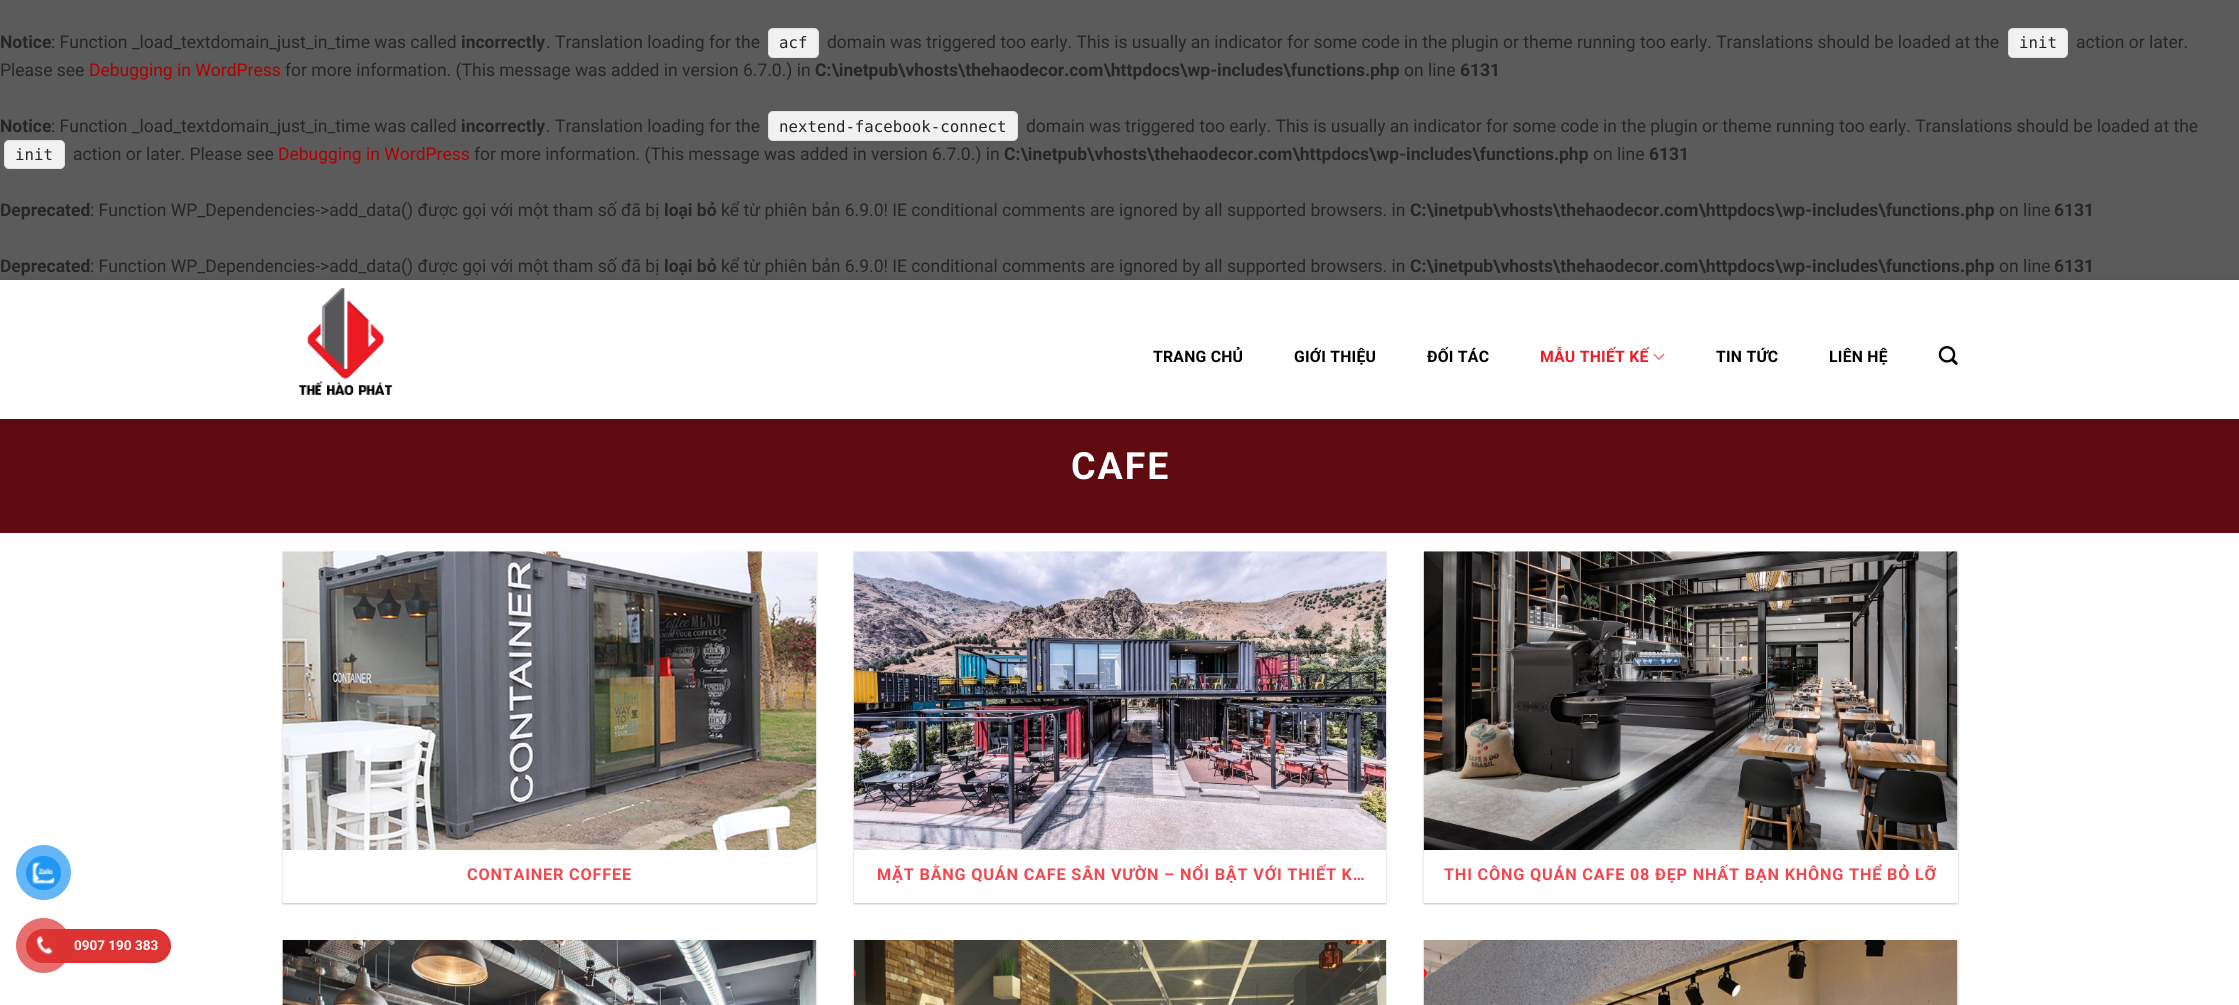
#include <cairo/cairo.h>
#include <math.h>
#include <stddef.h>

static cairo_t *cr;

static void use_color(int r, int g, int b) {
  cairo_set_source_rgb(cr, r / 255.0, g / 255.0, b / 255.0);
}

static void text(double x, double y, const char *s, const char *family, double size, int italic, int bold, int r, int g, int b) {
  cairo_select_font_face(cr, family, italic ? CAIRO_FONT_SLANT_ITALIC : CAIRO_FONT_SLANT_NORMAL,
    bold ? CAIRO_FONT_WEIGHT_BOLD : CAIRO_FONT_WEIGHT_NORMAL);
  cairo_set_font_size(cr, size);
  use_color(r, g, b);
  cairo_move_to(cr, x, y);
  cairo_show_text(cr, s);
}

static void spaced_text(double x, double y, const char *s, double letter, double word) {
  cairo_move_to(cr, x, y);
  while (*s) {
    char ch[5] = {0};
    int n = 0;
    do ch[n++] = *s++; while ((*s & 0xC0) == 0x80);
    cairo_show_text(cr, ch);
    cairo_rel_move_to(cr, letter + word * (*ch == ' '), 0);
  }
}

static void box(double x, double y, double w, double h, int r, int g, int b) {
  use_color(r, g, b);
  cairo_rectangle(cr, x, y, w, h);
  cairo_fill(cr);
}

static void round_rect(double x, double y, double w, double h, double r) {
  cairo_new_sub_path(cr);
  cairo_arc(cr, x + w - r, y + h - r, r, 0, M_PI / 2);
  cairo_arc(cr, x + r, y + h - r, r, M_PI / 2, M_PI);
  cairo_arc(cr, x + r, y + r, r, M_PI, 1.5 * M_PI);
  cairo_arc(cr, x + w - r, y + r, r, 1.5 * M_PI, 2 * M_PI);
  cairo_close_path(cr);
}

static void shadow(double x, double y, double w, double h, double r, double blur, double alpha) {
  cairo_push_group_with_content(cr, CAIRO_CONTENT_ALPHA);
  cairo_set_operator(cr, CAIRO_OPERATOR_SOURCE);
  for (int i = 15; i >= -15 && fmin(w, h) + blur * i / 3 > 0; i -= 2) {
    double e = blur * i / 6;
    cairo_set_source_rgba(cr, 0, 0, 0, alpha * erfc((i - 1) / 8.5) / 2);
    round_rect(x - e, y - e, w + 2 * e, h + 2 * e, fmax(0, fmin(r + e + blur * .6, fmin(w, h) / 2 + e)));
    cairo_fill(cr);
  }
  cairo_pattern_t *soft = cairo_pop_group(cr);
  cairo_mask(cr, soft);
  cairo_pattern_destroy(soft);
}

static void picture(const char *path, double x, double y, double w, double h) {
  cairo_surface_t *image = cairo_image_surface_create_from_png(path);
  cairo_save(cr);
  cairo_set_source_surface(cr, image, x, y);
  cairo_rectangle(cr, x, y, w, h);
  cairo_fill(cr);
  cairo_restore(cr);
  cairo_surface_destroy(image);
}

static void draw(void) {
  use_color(91, 91, 91);
  cairo_paint(cr);
  use_color(241, 241, 241);
  round_rect(768.5, 28.5, 50, 29, 4.5);
  cairo_fill_preserve(cr);
  use_color(225, 225, 225);
  cairo_set_line_width(cr, 1);
  cairo_stroke(cr);
  use_color(241, 241, 241);
  round_rect(2008.5, 28.5, 59, 29, 4.5);
  cairo_fill_preserve(cr);
  use_color(225, 225, 225);
  cairo_stroke(cr);
  use_color(241, 241, 241);
  round_rect(768.5, 111.5, 249, 29, 4.5);
  cairo_fill_preserve(cr);
  use_color(225, 225, 225);
  cairo_stroke(cr);
  use_color(241, 241, 241);
  round_rect(4.5, 140.5, 60, 28, 4.5);
  cairo_fill_preserve(cr);
  use_color(225, 225, 225);
  cairo_stroke(cr);
  box(0, 533, 2239, 472, 255, 255, 255);
  box(0, 419, 2239, 114, 95, 11, 15);
  use_color(0, 0, 0);
  shadow(1, 281, 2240, 139, 0, 6, 0.15);
  box(0, 280, 2239, 139, 255, 255, 255);
  picture("img_01.png", 299, 288, 94, 108);
  picture("img_02.png", 1653, 353, 12, 7);
  picture("img_03.png", 1938, 346, 20, 19);
  use_color(0, 0, 0);
  shadow(283, 553, 533, 351, 0, 1, 0.24);
  box(283, 551, 533, 352, 255, 255, 255);
  picture("img_04.png", 282, 551, 535, 299);
  use_color(0, 0, 0);
  shadow(854, 553, 532, 351, 0, 1, 0.24);
  box(854, 551, 532, 352, 255, 255, 255);
  picture("img_05.png", 853, 551, 534, 299);
  use_color(0, 0, 0);
  shadow(1424, 553, 534, 351, 0, 1, 0.24);
  box(1424, 551, 534, 352, 255, 255, 255);
  picture("img_06.png", 1423, 551, 535, 299);
  use_color(0, 0, 0);
  shadow(283, 941, 533, 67, 0, 1, 0.24);
  picture("img_07.png", 282, 940, 535, 65);
  shadow(854, 941, 532, 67, 0, 1, 0.24);
  picture("img_08.png", 853, 940, 534, 65);
  shadow(1424, 941, 534, 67, 0, 1, 0.24);
  box(1957, 940, 1, 65, 255, 255, 255);
  picture("img_09.png", 1423, 940, 535, 65);
  use_color(100, 182, 247);
  cairo_arc(cr, 43.5, 872.5, 27.5, 0, 2 * M_PI);
  cairo_fill(cr);
  use_color(33, 150, 243);
  round_rect(26, 856, 35, 34, 17);
  cairo_fill(cr);
  picture("img_10.png", 32, 862, 23, 22);
  use_color(221, 51, 51);
  round_rect(31, 929, 140, 34, 17);
  cairo_fill(cr);
  cairo_set_source_rgba(cr, 0.867, 0.2, 0.2, 0.7);
  cairo_arc(cr, 43.5, 945.5, 27.5, 0, 2 * M_PI);
  cairo_fill(cr);
  use_color(221, 51, 51);
  round_rect(26, 929, 35, 34, 17);
  cairo_fill(cr);
  picture("img_11.png", 36, 936, 17, 19);
  text(0, 48, "Notice", "Roboto", 17.5, 0, 1, 38, 38, 38);
  text(51, 48, ": Function _load_textdomain_just_in_time was called", "Roboto", 17.5, 0, 0, 38, 38, 38);
  text(461, 48, "incorrectly", "Roboto", 17.5, 0, 1, 38, 38, 38);
  text(546, 48, ". Translation loading for the", "Roboto", 17.5, 0, 0, 38, 38, 38);
  text(779, 48, "acf", "DejaVu Sans Mono", 15.75, 0, 0, 38, 38, 38);
  text(827, 48, "domain was triggered too early. This is usually an indicator for some code in the plugin or theme running too early. Translations should be loaded at the", "Roboto", 17.5, 0, 0, 38, 38, 38);
  text(2019, 48, "init", "DejaVu Sans Mono", 15.75, 0, 0, 38, 38, 38);
  text(2076, 48, "action or later.", "Roboto", 17.5, 0, 0, 38, 38, 38);
  text(0, 76, "Please see", "Roboto", 17.5, 0, 0, 38, 38, 38);
  text(89, 76, "Debugging in WordPress", "Roboto", 17.5, 0, 0, 178, 0, 0);
  text(285, 76, "for more information. (This message was added in version 6.7.0.) in", "Roboto", 17.5, 0, 0, 38, 38, 38);
  text(815, 76, "C:\\inetpub\\vhosts\\thehaodecor.com\\httpdocs\\wp-includes\\functions.php", "Roboto", 17.5, 0, 1, 38, 38, 38);
  text(1404, 76, "on line", "Roboto", 17.5, 0, 0, 38, 38, 38);
  text(1460, 76, "6131", "Roboto", 17.5, 0, 1, 38, 38, 38);
  text(0, 132, "Notice", "Roboto", 17.5, 0, 1, 38, 38, 38);
  text(51, 132, ": Function _load_textdomain_just_in_time was called", "Roboto", 17.5, 0, 0, 38, 38, 38);
  text(461, 132, "incorrectly", "Roboto", 17.5, 0, 1, 38, 38, 38);
  text(546, 132, ". Translation loading for the", "Roboto", 17.5, 0, 0, 38, 38, 38);
  text(779, 132, "nextend-facebook-connect", "DejaVu Sans Mono", 15.75, 0, 0, 38, 38, 38);
  text(1026, 132, "domain was triggered too early. This is usually an indicator for some code in the plugin or theme running too early. Translations should be loaded at the", "Roboto", 17.5, 0, 0, 38, 38, 38);
  text(15, 160, "init", "DejaVu Sans Mono", 15.75, 0, 0, 38, 38, 38);
  text(73, 160, "action or later. Please see", "Roboto", 17.5, 0, 0, 38, 38, 38);
  text(278, 160, "Debugging in WordPress", "Roboto", 17.5, 0, 0, 178, 0, 0);
  text(474, 160, "for more information. (This message was added in version 6.7.0.) in", "Roboto", 17.5, 0, 0, 38, 38, 38);
  text(1004, 160, "C:\\inetpub\\vhosts\\thehaodecor.com\\httpdocs\\wp-includes\\functions.php", "Roboto", 17.5, 0, 1, 38, 38, 38);
  text(1593, 160, "on line", "Roboto", 17.5, 0, 0, 38, 38, 38);
  text(1649, 160, "6131", "Roboto", 17.5, 0, 1, 38, 38, 38);
  text(0, 216, "Deprecated", "Roboto", 17.5, 0, 1, 38, 38, 38);
  text(90, 216, ": Function WP_Dependencies->add_data() được gọi với một tham số đã bị", "Roboto", 17.5, 0, 0, 38, 38, 38);
  text(664, 216, "loại bỏ", "Roboto", 17.5, 0, 1, 38, 38, 38);
  text(721, 216, "kể từ phiên bản 6.9.0! IE conditional comments are ignored by all supported browsers. in", "Roboto", 17.5, 0, 0, 38, 38, 38);
  text(1410, 216, "C:\\inetpub\\vhosts\\thehaodecor.com\\httpdocs\\wp-includes\\functions.php", "Roboto", 17.5, 0, 1, 38, 38, 38);
  text(1999, 216, "on line", "Roboto", 17.5, 0, 0, 38, 38, 38);
  text(2054, 216, "6131", "Roboto", 17.5, 0, 1, 38, 38, 38);
  text(0, 272, "Deprecated", "Roboto", 17.5, 0, 1, 38, 38, 38);
  text(90, 272, ": Function WP_Dependencies->add_data() được gọi với một tham số đã bị", "Roboto", 17.5, 0, 0, 38, 38, 38);
  text(664, 272, "loại bỏ", "Roboto", 17.5, 0, 1, 38, 38, 38);
  text(721, 272, "kể từ phiên bản 6.9.0! IE conditional comments are ignored by all supported browsers. in", "Roboto", 17.5, 0, 0, 38, 38, 38);
  text(1410, 272, "C:\\inetpub\\vhosts\\thehaodecor.com\\httpdocs\\wp-includes\\functions.php", "Roboto", 17.5, 0, 1, 38, 38, 38);
  text(1999, 272, "on line", "Roboto", 17.5, 0, 0, 38, 38, 38);
  text(2054, 272, "6131", "Roboto", 17.5, 0, 1, 38, 38, 38);
  cairo_set_font_size(cr, 15.75);
  use_color(0, 0, 0);
  spaced_text(1153, 362, "TRANG CHỦ", 0.25, 0);
  spaced_text(1294, 362, "GIỚI THIỆU", 0.25, 0);
  spaced_text(1427, 362, "ĐỐI TÁC", 0.25, 0);
  use_color(237, 28, 37);
  spaced_text(1540, 362, "MẪU THIẾT KẾ", 0.25, 0);
  use_color(0, 0, 0);
  spaced_text(1716, 362, "TIN TỨC", 0.25, 0);
  spaced_text(1829, 362, "LIÊN HỆ", 0.25, 0);
  cairo_set_font_size(cr, 37.5);
  use_color(255, 255, 255);
  spaced_text(1071, 479, "CAFE", 2, 0);
  cairo_set_font_size(cr, 16.25);
  use_color(240, 72, 79);
  spaced_text(467, 880, "CONTAINER COFFEE", 0.8, 0);
  spaced_text(877, 880, "MẶT BẰNG QUÁN CAFE SÂN VƯỜN – NỔI BẬT VỚI THIẾT K…", 0.8, 0);
  spaced_text(1444, 880, "THI CÔNG QUÁN CAFE 08 ĐẸP NHẤT BẠN KHÔNG THỂ BỎ LỠ", 0.8, 0);
  text(74, 950, "0907 190 383", "Roboto", 13.5, 0, 1, 255, 255, 255);
}

int main(void) {
  cairo_surface_t *surface = cairo_image_surface_create(CAIRO_FORMAT_RGB24, 2239, 1005);
  cr = cairo_create(surface);
  cairo_font_options_t *options = cairo_font_options_create();
  cairo_font_options_set_hint_metrics(options, CAIRO_HINT_METRICS_OFF);
  cairo_font_options_set_hint_style(options, CAIRO_HINT_STYLE_NONE);
  cairo_set_font_options(cr, options);
  cairo_set_miter_limit(cr, 4);
  draw();
  cairo_surface_write_to_png(surface, "out.png");
  cairo_font_options_destroy(options);
  cairo_destroy(cr);
  cairo_surface_destroy(surface);
  return 0;
}
